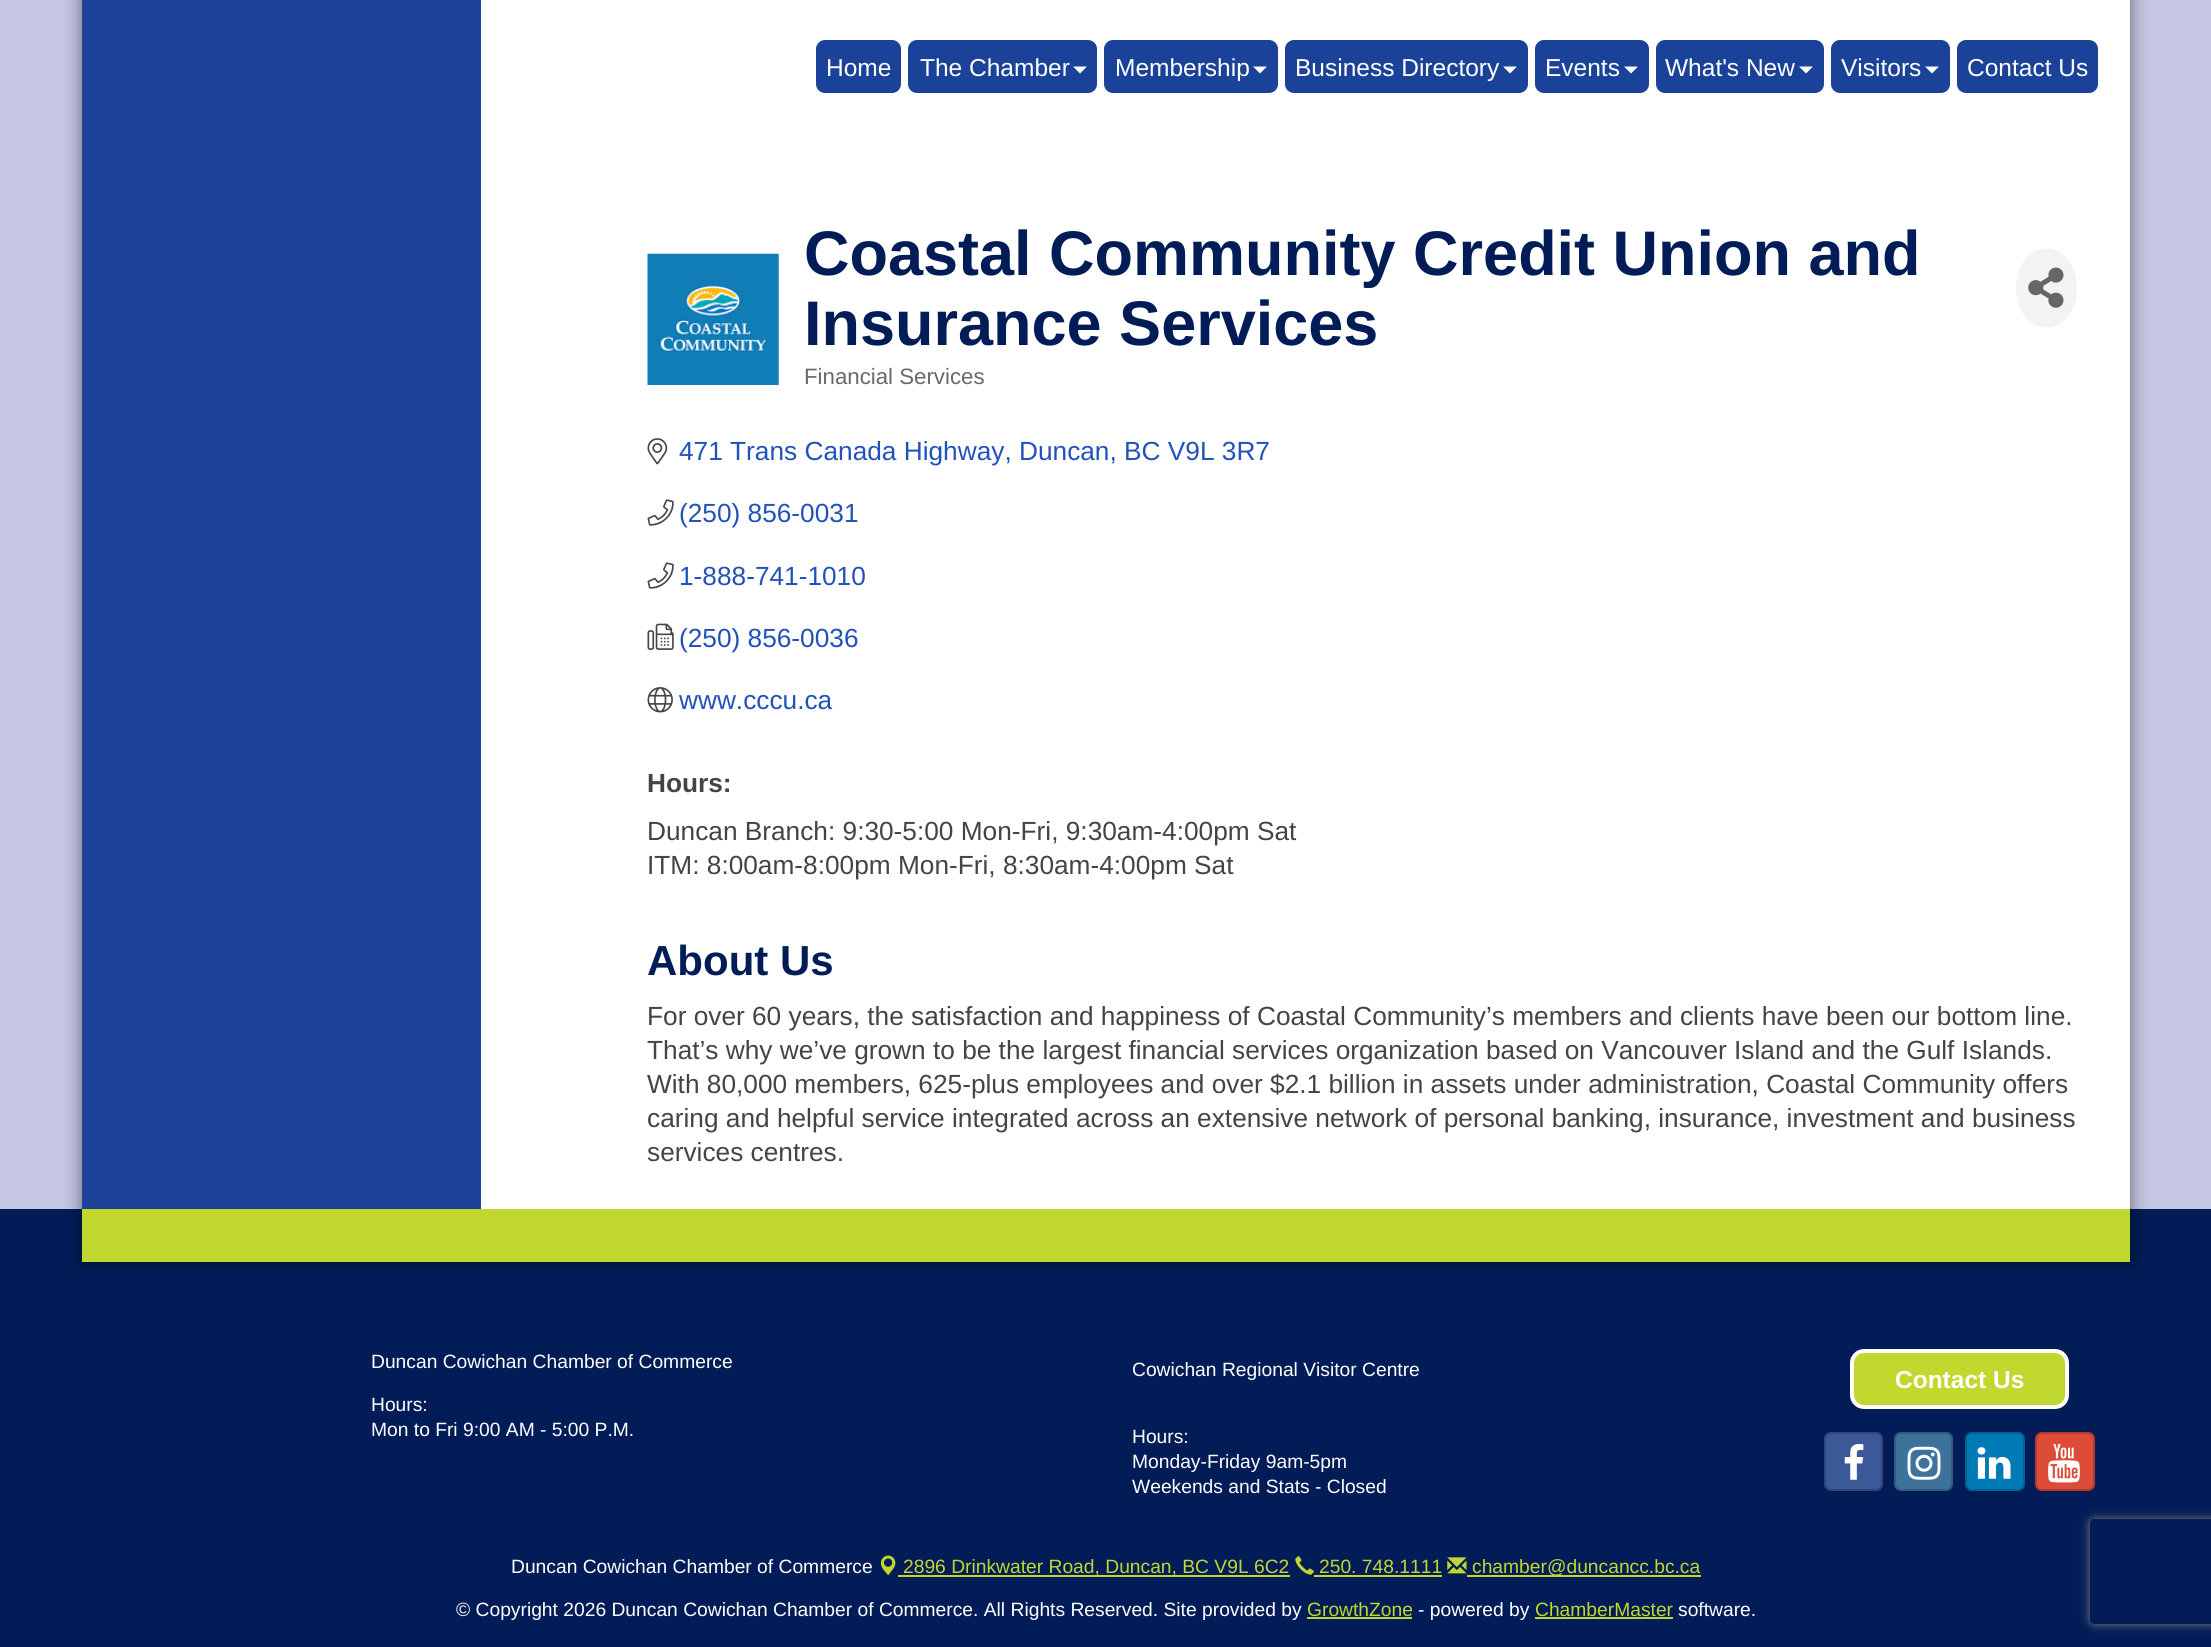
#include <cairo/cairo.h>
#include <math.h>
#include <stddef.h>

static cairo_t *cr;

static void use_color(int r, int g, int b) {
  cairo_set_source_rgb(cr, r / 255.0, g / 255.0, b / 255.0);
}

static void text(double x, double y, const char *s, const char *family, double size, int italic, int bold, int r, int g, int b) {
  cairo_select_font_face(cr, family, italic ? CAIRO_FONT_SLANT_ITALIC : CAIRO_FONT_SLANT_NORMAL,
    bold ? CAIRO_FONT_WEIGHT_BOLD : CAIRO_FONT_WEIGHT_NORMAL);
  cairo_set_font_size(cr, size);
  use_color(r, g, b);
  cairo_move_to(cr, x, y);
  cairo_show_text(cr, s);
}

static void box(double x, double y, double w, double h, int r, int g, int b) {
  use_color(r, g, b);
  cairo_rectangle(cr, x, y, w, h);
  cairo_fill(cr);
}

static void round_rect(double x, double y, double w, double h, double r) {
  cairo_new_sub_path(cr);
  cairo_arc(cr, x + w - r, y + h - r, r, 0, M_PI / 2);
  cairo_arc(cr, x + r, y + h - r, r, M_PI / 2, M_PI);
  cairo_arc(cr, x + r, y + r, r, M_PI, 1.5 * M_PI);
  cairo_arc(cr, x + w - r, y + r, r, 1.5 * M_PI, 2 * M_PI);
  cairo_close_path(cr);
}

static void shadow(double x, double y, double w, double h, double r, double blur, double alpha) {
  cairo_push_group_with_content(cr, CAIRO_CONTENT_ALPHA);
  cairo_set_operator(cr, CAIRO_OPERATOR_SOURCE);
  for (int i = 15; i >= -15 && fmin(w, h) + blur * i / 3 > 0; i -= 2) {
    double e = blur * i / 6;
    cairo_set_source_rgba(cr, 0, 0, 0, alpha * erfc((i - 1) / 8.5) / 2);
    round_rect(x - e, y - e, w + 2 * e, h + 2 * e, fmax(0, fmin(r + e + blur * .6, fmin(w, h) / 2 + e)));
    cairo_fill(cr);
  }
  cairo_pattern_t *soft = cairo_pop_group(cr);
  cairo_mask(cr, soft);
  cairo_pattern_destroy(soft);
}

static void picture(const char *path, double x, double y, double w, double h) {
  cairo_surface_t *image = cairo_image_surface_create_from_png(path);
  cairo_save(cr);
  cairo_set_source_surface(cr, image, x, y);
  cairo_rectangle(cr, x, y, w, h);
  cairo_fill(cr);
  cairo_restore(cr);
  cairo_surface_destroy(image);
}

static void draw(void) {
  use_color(198, 199, 228);
  cairo_paint(cr);
  box(0, 1209, 2211, 438, 1, 28, 87);
  use_color(0, 0, 0);
  shadow(82, -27, 2048, 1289, 0, 9, 0.5);
  box(481, 0, 1649, 1209, 255, 255, 255);
  box(82, 0, 399, 1209, 27, 66, 152);
  use_color(26, 66, 152);
  round_rect(816, 40, 85, 53, 9);
  cairo_fill(cr);
  round_rect(908, 40, 189, 53, 9);
  cairo_fill(cr);
  use_color(255, 255, 255);
  cairo_new_path(cr);
  cairo_move_to(cr, 1073, 66.5);
  cairo_line_to(cr, 1087, 66.5);
  cairo_line_to(cr, 1080, 73.5);
  cairo_close_path(cr);
  cairo_fill(cr);
  use_color(26, 66, 152);
  round_rect(1104, 40, 174, 53, 9);
  cairo_fill(cr);
  use_color(255, 255, 255);
  cairo_new_path(cr);
  cairo_move_to(cr, 1253, 66.5);
  cairo_line_to(cr, 1267, 66.5);
  cairo_line_to(cr, 1260, 73.5);
  cairo_close_path(cr);
  cairo_fill(cr);
  use_color(26, 66, 152);
  round_rect(1285, 40, 243, 53, 9);
  cairo_fill(cr);
  use_color(255, 255, 255);
  cairo_new_path(cr);
  cairo_move_to(cr, 1503, 66.5);
  cairo_line_to(cr, 1517, 66.5);
  cairo_line_to(cr, 1510, 73.5);
  cairo_close_path(cr);
  cairo_fill(cr);
  use_color(26, 66, 152);
  round_rect(1535, 40, 114, 53, 9);
  cairo_fill(cr);
  use_color(255, 255, 255);
  cairo_new_path(cr);
  cairo_move_to(cr, 1624, 66.5);
  cairo_line_to(cr, 1638, 66.5);
  cairo_line_to(cr, 1631, 73.5);
  cairo_close_path(cr);
  cairo_fill(cr);
  use_color(26, 66, 152);
  round_rect(1656, 40, 168, 53, 9);
  cairo_fill(cr);
  use_color(255, 255, 255);
  cairo_new_path(cr);
  cairo_move_to(cr, 1799, 66.5);
  cairo_line_to(cr, 1813, 66.5);
  cairo_line_to(cr, 1806, 73.5);
  cairo_close_path(cr);
  cairo_fill(cr);
  use_color(26, 66, 152);
  round_rect(1831, 40, 119, 53, 9);
  cairo_fill(cr);
  use_color(255, 255, 255);
  cairo_new_path(cr);
  cairo_move_to(cr, 1925, 66.5);
  cairo_line_to(cr, 1939, 66.5);
  cairo_line_to(cr, 1932, 73.5);
  cairo_close_path(cr);
  cairo_fill(cr);
  use_color(26, 66, 152);
  round_rect(1957, 40, 141, 53, 9);
  cairo_fill(cr);
  box(82, 1209, 2048, 53, 193, 216, 47);
  picture("img_01.png", 647, 253, 132, 132);
  use_color(243, 243, 243);
  cairo_new_path(cr);
  cairo_move_to(cr, 2046.5, 248.5);
  cairo_curve_to(cr, 2063.5, 248.5, 2077, 266, 2077, 288);
  cairo_curve_to(cr, 2077, 310, 2063.5, 327.5, 2046.5, 327.5);
  cairo_curve_to(cr, 2029.5, 327.5, 2016, 310, 2016, 288);
  cairo_curve_to(cr, 2016, 266, 2029.5, 248.5, 2046.5, 248.5);
  cairo_close_path(cr);
  cairo_fill(cr);
  picture("img_02.png", 2028, 267, 36, 41);
  picture("img_03.png", 647, 438, 21, 27);
  picture("img_04.png", 647, 499, 27, 27);
  picture("img_04.png", 647, 562, 27, 27);
  picture("img_05.png", 647, 623, 27, 27);
  picture("img_06.png", 647, 687, 26, 26);
  use_color(193, 216, 47);
  round_rect(1852, 1351, 215, 56, 12);
  cairo_fill_preserve(cr);
  use_color(255, 255, 255);
  cairo_set_line_width(cr, 4);
  cairo_stroke(cr);
  use_color(59, 89, 152);
  round_rect(1824, 1432, 59, 59, 7);
  cairo_fill(cr);
  round_rect(1825, 1433, 57, 57, 6);
  cairo_set_source_rgba(cr, 0, 0, 0, 0.2);
  cairo_set_line_width(cr, 2);
  cairo_stroke(cr);
  picture("img_07.png", 1844, 1444, 20, 36);
  use_color(63, 114, 155);
  round_rect(1894, 1432, 59, 59, 7);
  cairo_fill(cr);
  round_rect(1895, 1433, 57, 57, 6);
  cairo_set_source_rgba(cr, 0, 0, 0, 0.2);
  cairo_stroke(cr);
  picture("img_08.png", 1907, 1446, 34, 34);
  use_color(0, 123, 182);
  round_rect(1965, 1432, 60, 59, 7);
  cairo_fill(cr);
  round_rect(1966, 1433, 58, 57, 6);
  cairo_set_source_rgba(cr, 0, 0, 0, 0.2);
  cairo_stroke(cr);
  picture("img_09.png", 1977, 1447, 34, 32);
  use_color(221, 75, 57);
  round_rect(2035, 1432, 60, 59, 7);
  cairo_fill(cr);
  round_rect(2036, 1433, 58, 57, 6);
  cairo_set_source_rgba(cr, 0, 0, 0, 0.2);
  cairo_stroke(cr);
  picture("img_10.png", 2048, 1444, 32, 39);
  picture("img_11.png", 880, 1555, 16, 21);
  box(898, 1575, 392, 2, 193, 215, 47);
  picture("img_12.png", 1295, 1556, 19, 19);
  box(1314, 1575, 128, 2, 193, 215, 47);
  picture("img_13.png", 1447, 1557, 20, 17);
  box(1467, 1575, 234, 2, 193, 215, 47);
  box(1307, 1617, 105, 2, 193, 215, 47);
  box(1535, 1617, 138, 2, 193, 215, 47);
  cairo_save(cr);
  cairo_set_fill_rule(cr, CAIRO_FILL_RULE_EVEN_ODD);
  cairo_new_path(cr);
  cairo_move_to(cr, 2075, 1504);
  cairo_line_to(cr, 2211, 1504);
  cairo_line_to(cr, 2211, 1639);
  cairo_line_to(cr, 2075, 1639);
  cairo_close_path(cr);
  cairo_move_to(cr, 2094, 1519);
  cairo_line_to(cr, 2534, 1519);
  cairo_curve_to(cr, 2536, 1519, 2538, 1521, 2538, 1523);
  cairo_line_to(cr, 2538, 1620);
  cairo_curve_to(cr, 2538, 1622, 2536, 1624, 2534, 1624);
  cairo_line_to(cr, 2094, 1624);
  cairo_curve_to(cr, 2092, 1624, 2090, 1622, 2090, 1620);
  cairo_line_to(cr, 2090, 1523);
  cairo_curve_to(cr, 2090, 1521, 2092, 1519, 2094, 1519);
  cairo_close_path(cr);
  cairo_clip(cr);
  use_color(128, 128, 128);
  shadow(2090, 1519, 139, 105, 4, 4.5, 1);
  cairo_restore(cr);
  text(826, 76, "Home", "Liberation Sans", 24.5, 0, 0, 255, 255, 255);
  text(920, 76, "The Chamber", "Liberation Sans", 24.5, 0, 0, 255, 255, 255);
  text(1115, 76, "Membership", "Liberation Sans", 24.5, 0, 0, 255, 255, 255);
  text(1295, 76, "Business Directory", "Liberation Sans", 24.5, 0, 0, 255, 255, 255);
  text(1545, 76, "Events", "Liberation Sans", 24.5, 0, 0, 255, 255, 255);
  text(1665, 76, "What's New", "Liberation Sans", 24.5, 0, 0, 255, 255, 255);
  text(1841, 76, "Visitors", "Liberation Sans", 24.5, 0, 0, 255, 255, 255);
  text(1967, 76, "Contact Us", "Liberation Sans", 24.5, 0, 0, 255, 255, 255);
  text(804, 275, "Coastal Community Credit Union and", "Liberation Sans", 63, 0, 1, 1, 28, 87);
  text(804, 345, "Insurance Services", "Liberation Sans", 63, 0, 1, 1, 28, 87);
  text(804, 384, "Financial Services", "Liberation Sans", 22.25, 0, 0, 105, 105, 105);
  text(679, 460, "471 Trans Canada Highway, Duncan, BC V9L 3R7", "Liberation Sans", 26.25, 0, 0, 33, 82, 188);
  text(679, 522, "(250) 856-0031", "Liberation Sans", 26.25, 0, 0, 33, 82, 188);
  text(679, 585, "1-888-741-1010", "Liberation Sans", 26.25, 0, 0, 33, 82, 188);
  text(679, 647, "(250) 856-0036", "Liberation Sans", 26.25, 0, 0, 33, 82, 188);
  text(679, 709, "www.cccu.ca", "Liberation Sans", 26.25, 0, 0, 33, 82, 188);
  text(647, 792, "Hours:", "Liberation Sans", 26.25, 0, 1, 68, 68, 68);
  text(647, 840, "Duncan Branch: 9:30-5:00 Mon-Fri, 9:30am-4:00pm Sat", "Liberation Sans", 26.25, 0, 0, 68, 68, 68);
  text(647, 874, "ITM: 8:00am-8:00pm Mon-Fri, 8:30am-4:00pm Sat", "Liberation Sans", 26.25, 0, 0, 68, 68, 68);
  text(647, 975, "About Us", "Liberation Sans", 42, 0, 1, 1, 28, 87);
  text(647, 1025, "For over 60 years, the satisfaction and happiness of Coastal Community’s members and clients have been our bottom line.", "Liberation Sans", 26.25, 0, 0, 68, 68, 68);
  text(647, 1059, "That’s why we’ve grown to be the largest financial services organization based on Vancouver Island and the Gulf Islands.", "Liberation Sans", 26.25, 0, 0, 68, 68, 68);
  text(647, 1093, "With 80,000 members, 625-plus employees and over $2.1 billion in assets under administration, Coastal Community offers", "Liberation Sans", 26.25, 0, 0, 68, 68, 68);
  text(647, 1127, "caring and helpful service integrated across an extensive network of personal banking, insurance, investment and business", "Liberation Sans", 26.25, 0, 0, 68, 68, 68);
  text(647, 1161, "services centres.", "Liberation Sans", 26.25, 0, 0, 68, 68, 68);
  text(371, 1368, "Duncan Cowichan Chamber of Commerce", "Liberation Sans", 19.25, 0, 0, 255, 255, 255);
  text(371, 1411, "Hours:", "Liberation Sans", 19.25, 0, 0, 255, 255, 255);
  text(371, 1436, "Mon to Fri 9:00 AM - 5:00 P.M.", "Liberation Sans", 19.25, 0, 0, 255, 255, 255);
  text(1132, 1376, "Cowichan Regional Visitor Centre", "Liberation Sans", 19.25, 0, 0, 255, 255, 255);
  text(1132, 1443, "Hours:", "Liberation Sans", 19.25, 0, 0, 255, 255, 255);
  text(1132, 1468, "Monday-Friday 9am-5pm", "Liberation Sans", 19.25, 0, 0, 255, 255, 255);
  text(1132, 1493, "Weekends and Stats - Closed", "Liberation Sans", 19.25, 0, 0, 255, 255, 255);
  text(1895, 1388, "Contact Us", "Liberation Sans", 24.5, 0, 1, 255, 255, 255);
  text(511, 1573, "Duncan Cowichan Chamber of Commerce", "Liberation Sans", 19.25, 0, 0, 255, 255, 255);
  text(903, 1573, "2896 Drinkwater Road, Duncan, BC V9L 6C2", "Liberation Sans", 19.25, 0, 0, 193, 215, 47);
  text(1319, 1573, "250. 748.1111", "Liberation Sans", 19.25, 0, 0, 193, 215, 47);
  text(1472, 1573, "chamber@duncancc.bc.ca", "Liberation Sans", 19.25, 0, 0, 193, 215, 47);
  text(456, 1616, "© Copyright 2026 Duncan Cowichan Chamber of Commerce. All Rights Reserved. Site provided by", "Liberation Sans", 19.25, 0, 0, 255, 255, 255);
  text(1307, 1616, "GrowthZone", "Liberation Sans", 19.25, 0, 0, 193, 215, 47);
  text(1418, 1616, "- powered by", "Liberation Sans", 19.25, 0, 0, 255, 255, 255);
  text(1535, 1616, "ChamberMaster", "Liberation Sans", 19.25, 0, 0, 193, 215, 47);
  text(1678, 1616, "software.", "Liberation Sans", 19.25, 0, 0, 255, 255, 255);
}

int main(void) {
  cairo_surface_t *surface = cairo_image_surface_create(CAIRO_FORMAT_RGB24, 2211, 1647);
  cr = cairo_create(surface);
  cairo_font_options_t *options = cairo_font_options_create();
  cairo_font_options_set_hint_metrics(options, CAIRO_HINT_METRICS_OFF);
  cairo_font_options_set_hint_style(options, CAIRO_HINT_STYLE_NONE);
  cairo_set_font_options(cr, options);
  cairo_set_miter_limit(cr, 4);
  draw();
  cairo_surface_write_to_png(surface, "out.png");
  cairo_font_options_destroy(options);
  cairo_destroy(cr);
  cairo_surface_destroy(surface);
  return 0;
}
